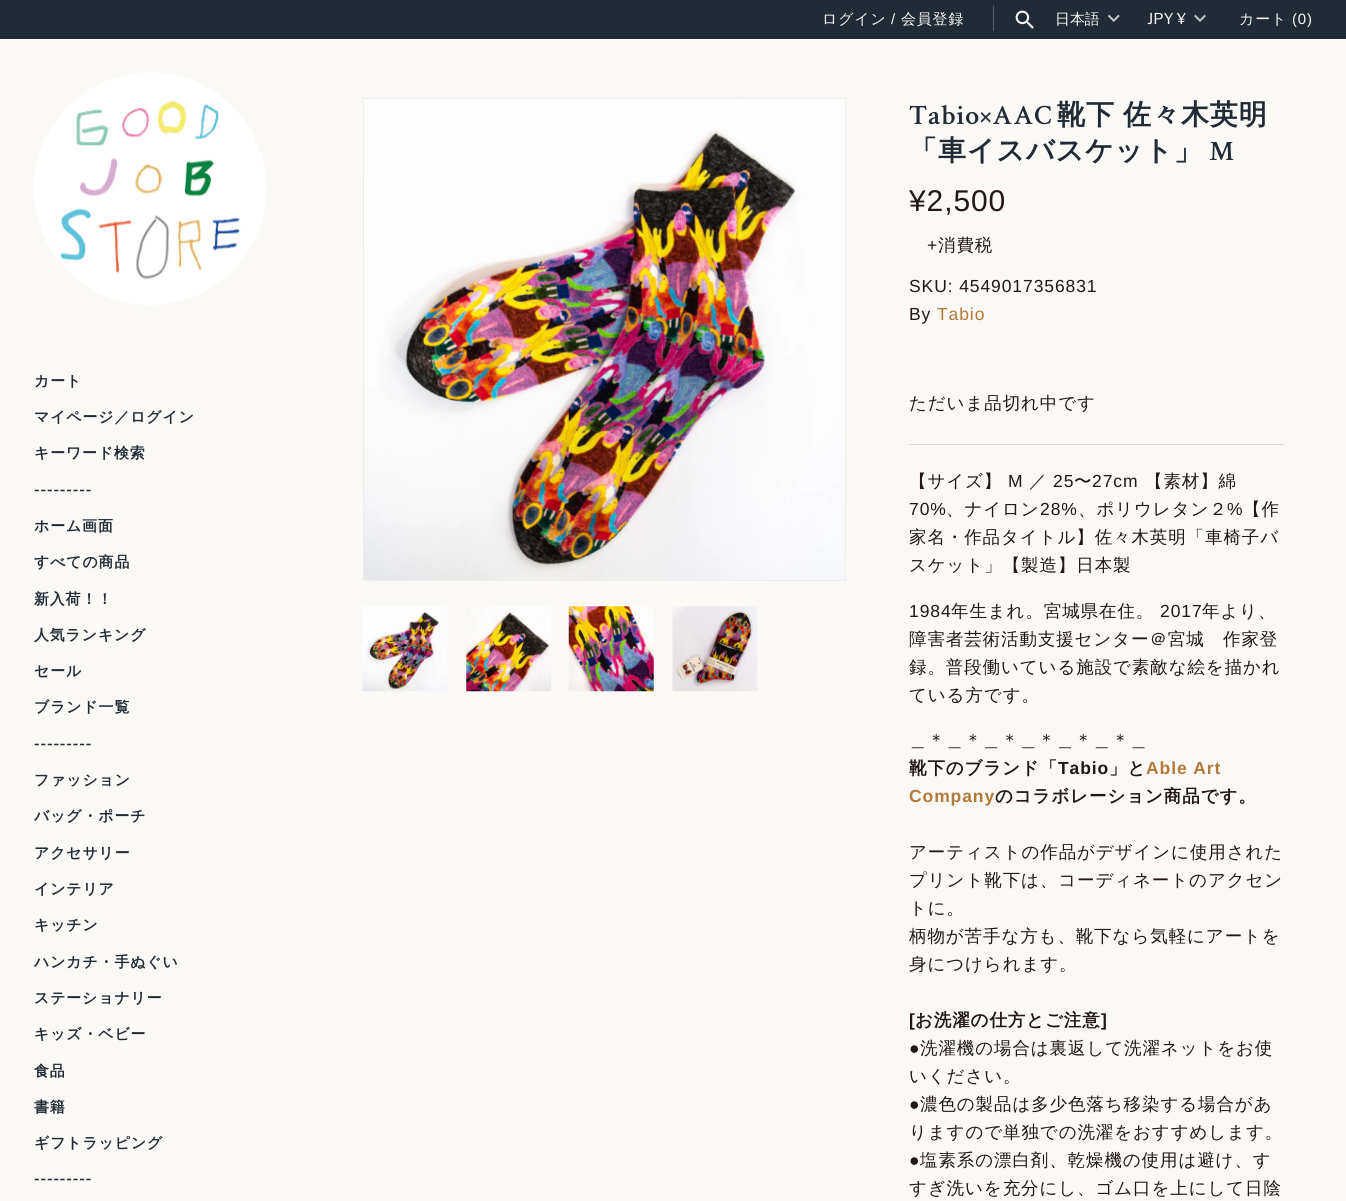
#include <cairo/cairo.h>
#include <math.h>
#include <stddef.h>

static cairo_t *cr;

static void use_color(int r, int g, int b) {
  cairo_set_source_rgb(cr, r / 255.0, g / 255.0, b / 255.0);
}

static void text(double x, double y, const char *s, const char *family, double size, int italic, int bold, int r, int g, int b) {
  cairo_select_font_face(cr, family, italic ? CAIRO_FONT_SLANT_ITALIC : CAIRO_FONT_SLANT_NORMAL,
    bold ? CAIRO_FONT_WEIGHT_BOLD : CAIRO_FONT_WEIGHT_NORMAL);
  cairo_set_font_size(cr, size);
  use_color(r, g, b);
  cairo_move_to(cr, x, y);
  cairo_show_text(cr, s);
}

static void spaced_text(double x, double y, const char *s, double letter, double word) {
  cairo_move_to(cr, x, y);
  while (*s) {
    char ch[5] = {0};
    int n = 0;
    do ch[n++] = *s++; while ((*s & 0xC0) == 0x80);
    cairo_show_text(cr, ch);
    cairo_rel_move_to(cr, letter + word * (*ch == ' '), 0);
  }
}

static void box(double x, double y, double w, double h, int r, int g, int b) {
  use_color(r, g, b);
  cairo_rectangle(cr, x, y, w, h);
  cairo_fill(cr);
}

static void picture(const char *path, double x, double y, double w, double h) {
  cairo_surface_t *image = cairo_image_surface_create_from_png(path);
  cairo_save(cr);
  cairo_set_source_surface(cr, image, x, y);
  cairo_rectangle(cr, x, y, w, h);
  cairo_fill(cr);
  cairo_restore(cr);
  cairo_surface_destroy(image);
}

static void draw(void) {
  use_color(250, 249, 245);
  cairo_paint(cr);
  box(0, 0, 1346, 39, 33, 43, 54);
  box(993, 6, 1, 25, 87, 95, 102);
  picture("img_01.png", 1015, 10, 19, 19);
  picture("img_02.png", 1107, 14, 13, 8);
  picture("img_03.png", 1194, 14, 12, 8);
  picture("img_04.png", 34, 72, 232, 233);
  cairo_rectangle(cr, 363.5, 98.5, 482, 482);
  use_color(238, 237, 233);
  cairo_set_line_width(cr, 1);
  cairo_stroke(cr);
  picture("img_05.png", 364, 99, 481, 481);
  picture("img_06.png", 362, 606, 86, 86);
  picture("img_07.png", 466, 606, 86, 86);
  picture("img_08.png", 568, 606, 86, 86);
  picture("img_09.png", 672, 606, 86, 86);
  box(909, 444, 375, 1, 219, 218, 215);
  cairo_select_font_face(cr, "WenQuanYi Zen Hei Medium", CAIRO_FONT_SLANT_NORMAL, CAIRO_FONT_WEIGHT_NORMAL);
  cairo_set_font_size(cr, 14.9);
  use_color(250, 249, 245);
  spaced_text(822, 24, "ログイン", 0.9, 0);
  cairo_select_font_face(cr, "Liberation Sans", CAIRO_FONT_SLANT_NORMAL, CAIRO_FONT_WEIGHT_NORMAL);
  spaced_text(891, 24, "/", 0.9, 0);
  cairo_select_font_face(cr, "WenQuanYi Zen Hei Medium", CAIRO_FONT_SLANT_NORMAL, CAIRO_FONT_WEIGHT_NORMAL);
  spaced_text(901, 24, "会員登録", 0.9, 0);
  text(1055, 24, "日本語", "WenQuanYi Zen Hei Medium", 14.9, 0, 0, 250, 249, 245);
  text(1147, 24, "JPY ¥", "Libre Franklin", 14.9, 0, 0, 250, 249, 245);
  cairo_select_font_face(cr, "WenQuanYi Zen Hei Medium", CAIRO_FONT_SLANT_NORMAL, CAIRO_FONT_WEIGHT_NORMAL);
  spaced_text(1239, 24, "カート", 0.9, 0);
  cairo_select_font_face(cr, "Liberation Sans", CAIRO_FONT_SLANT_NORMAL, CAIRO_FONT_WEIGHT_NORMAL);
  spaced_text(1292, 24, "(0)", 0.9, 0);
  cairo_select_font_face(cr, "WenQuanYi Zen Hei", CAIRO_FONT_SLANT_NORMAL, CAIRO_FONT_WEIGHT_BOLD);
  use_color(33, 43, 54);
  spaced_text(34, 386, "カート", 0.9, 0);
  spaced_text(34, 422, "マイページ／ログイン", 0.9, 0);
  spaced_text(34, 458, "キーワード検索", 0.9, 0);
  cairo_select_font_face(cr, "Karla", CAIRO_FONT_SLANT_NORMAL, CAIRO_FONT_WEIGHT_BOLD);
  spaced_text(34, 495, "---------", 0.9, 0);
  cairo_select_font_face(cr, "WenQuanYi Zen Hei", CAIRO_FONT_SLANT_NORMAL, CAIRO_FONT_WEIGHT_BOLD);
  spaced_text(34, 531, "ホーム画面", 0.9, 0);
  spaced_text(34, 567, "すべての商品", 0.9, 0);
  spaced_text(34, 604, "新入荷！！", 0.9, 0);
  spaced_text(34, 640, "人気ランキング", 0.9, 0);
  spaced_text(34, 676, "セール", 0.9, 0);
  spaced_text(34, 712, "ブランド一覧", 0.9, 0);
  cairo_select_font_face(cr, "Karla", CAIRO_FONT_SLANT_NORMAL, CAIRO_FONT_WEIGHT_BOLD);
  spaced_text(34, 749, "---------", 0.9, 0);
  cairo_select_font_face(cr, "WenQuanYi Zen Hei", CAIRO_FONT_SLANT_NORMAL, CAIRO_FONT_WEIGHT_BOLD);
  spaced_text(34, 785, "ファッション", 0.9, 0);
  spaced_text(34, 821, "バッグ・ポーチ", 0.9, 0);
  spaced_text(34, 858, "アクセサリー", 0.9, 0);
  spaced_text(34, 894, "インテリア", 0.9, 0);
  spaced_text(34, 930, "キッチン", 0.9, 0);
  spaced_text(34, 967, "ハンカチ・手ぬぐい", 0.9, 0);
  spaced_text(34, 1003, "ステーショナリー", 0.9, 0);
  spaced_text(34, 1039, "キッズ・ベビー", 0.9, 0);
  spaced_text(34, 1076, "食品", 0.9, 0);
  spaced_text(34, 1112, "書籍", 0.9, 0);
  spaced_text(34, 1148, "ギフトラッピング", 0.9, 0);
  cairo_select_font_face(cr, "Karla", CAIRO_FONT_SLANT_NORMAL, CAIRO_FONT_WEIGHT_BOLD);
  spaced_text(34, 1184, "---------", 0.9, 0);
  cairo_select_font_face(cr, "Crimson Text SemiBold", CAIRO_FONT_SLANT_NORMAL, CAIRO_FONT_WEIGHT_NORMAL);
  cairo_set_font_size(cr, 28);
  spaced_text(909, 124, "Tabio×AAC", 0.9, 0);
  cairo_select_font_face(cr, "WenQuanYi Zen Hei", CAIRO_FONT_SLANT_NORMAL, CAIRO_FONT_WEIGHT_BOLD);
  spaced_text(1057, 124, "靴下 佐々木英明", 0.9, -1);
  spaced_text(909, 160, "「車イスバスケット」", 0.9, 0);
  cairo_select_font_face(cr, "Crimson Text SemiBold", CAIRO_FONT_SLANT_NORMAL, CAIRO_FONT_WEIGHT_NORMAL);
  spaced_text(1209, 160, "M", 0.9, 0);
  cairo_select_font_face(cr, "Liberation Sans", CAIRO_FONT_SLANT_NORMAL, CAIRO_FONT_WEIGHT_NORMAL);
  cairo_set_font_size(cr, 30);
  use_color(33, 23, 21);
  spaced_text(909, 211, "¥2,500", 0.9, 0);
  cairo_set_font_size(cr, 17.5);
  spaced_text(927, 251, "+", 0.9, 0);
  cairo_select_font_face(cr, "WenQuanYi Zen Hei Medium", CAIRO_FONT_SLANT_NORMAL, CAIRO_FONT_WEIGHT_NORMAL);
  spaced_text(938, 251, "消費税", 0.9, 0);
  cairo_select_font_face(cr, "Liberation Sans", CAIRO_FONT_SLANT_NORMAL, CAIRO_FONT_WEIGHT_NORMAL);
  spaced_text(909, 292, "SKU: 4549017356831", 0.9, 0);
  spaced_text(909, 320, "By", 0.9, 0);
  use_color(179, 121, 59);
  spaced_text(937, 320, "Tabio", 0.9, 0);
  cairo_select_font_face(cr, "WenQuanYi Zen Hei Medium", CAIRO_FONT_SLANT_NORMAL, CAIRO_FONT_WEIGHT_NORMAL);
  use_color(33, 23, 21);
  spaced_text(909, 409, "ただいま品切れ中です", 0.9, 0);
  spaced_text(909, 487, "【サイズ】", 0.9, 0);
  cairo_select_font_face(cr, "Liberation Sans", CAIRO_FONT_SLANT_NORMAL, CAIRO_FONT_WEIGHT_NORMAL);
  spaced_text(1008, 487, "M", 0.9, 0);
  cairo_select_font_face(cr, "WenQuanYi Zen Hei Medium", CAIRO_FONT_SLANT_NORMAL, CAIRO_FONT_WEIGHT_NORMAL);
  spaced_text(1029, 487, "／", 0.9, 0);
  cairo_select_font_face(cr, "Liberation Sans", CAIRO_FONT_SLANT_NORMAL, CAIRO_FONT_WEIGHT_NORMAL);
  spaced_text(1053, 487, "25", 0.9, 0);
  cairo_select_font_face(cr, "WenQuanYi Zen Hei Medium", CAIRO_FONT_SLANT_NORMAL, CAIRO_FONT_WEIGHT_NORMAL);
  spaced_text(1074, 487, "〜", 0.9, 0);
  cairo_select_font_face(cr, "Liberation Sans", CAIRO_FONT_SLANT_NORMAL, CAIRO_FONT_WEIGHT_NORMAL);
  spaced_text(1092, 487, "27cm", 0.9, 0);
  cairo_select_font_face(cr, "WenQuanYi Zen Hei Medium", CAIRO_FONT_SLANT_NORMAL, CAIRO_FONT_WEIGHT_NORMAL);
  spaced_text(1145, 487, "【素材】綿", 0.9, 0);
  cairo_select_font_face(cr, "Liberation Sans", CAIRO_FONT_SLANT_NORMAL, CAIRO_FONT_WEIGHT_NORMAL);
  spaced_text(909, 515, "70%", 0.9, 0);
  cairo_select_font_face(cr, "WenQuanYi Zen Hei Medium", CAIRO_FONT_SLANT_NORMAL, CAIRO_FONT_WEIGHT_NORMAL);
  spaced_text(946, 515, "、ナイロン", 0.9, 0);
  cairo_select_font_face(cr, "Liberation Sans", CAIRO_FONT_SLANT_NORMAL, CAIRO_FONT_WEIGHT_NORMAL);
  spaced_text(1040, 515, "28%", 0.9, 0);
  cairo_select_font_face(cr, "WenQuanYi Zen Hei Medium", CAIRO_FONT_SLANT_NORMAL, CAIRO_FONT_WEIGHT_NORMAL);
  spaced_text(1078, 515, "、ポリウレタン２", 0.9, 0);
  cairo_select_font_face(cr, "Liberation Sans", CAIRO_FONT_SLANT_NORMAL, CAIRO_FONT_WEIGHT_NORMAL);
  spaced_text(1227, 515, "%", 0.9, 0);
  cairo_select_font_face(cr, "WenQuanYi Zen Hei Medium", CAIRO_FONT_SLANT_NORMAL, CAIRO_FONT_WEIGHT_NORMAL);
  spaced_text(1243, 515, "【作", 0.9, 0);
  spaced_text(909, 543, "家名・作品タイトル】佐々木英明「車椅子バ", 0.9, 0);
  spaced_text(909, 571, "スケット」【製造】日本製", 0.9, 0);
  cairo_select_font_face(cr, "Liberation Sans", CAIRO_FONT_SLANT_NORMAL, CAIRO_FONT_WEIGHT_NORMAL);
  spaced_text(909, 617, "1984", 0.9, 0);
  cairo_select_font_face(cr, "WenQuanYi Zen Hei Medium", CAIRO_FONT_SLANT_NORMAL, CAIRO_FONT_WEIGHT_NORMAL);
  spaced_text(951, 617, "年生まれ。宮城県在住。", 0.9, 0);
  cairo_select_font_face(cr, "Liberation Sans", CAIRO_FONT_SLANT_NORMAL, CAIRO_FONT_WEIGHT_NORMAL);
  spaced_text(1160, 617, "2017", 0.9, 0);
  cairo_select_font_face(cr, "WenQuanYi Zen Hei Medium", CAIRO_FONT_SLANT_NORMAL, CAIRO_FONT_WEIGHT_NORMAL);
  spaced_text(1202, 617, "年より、", 0.9, 0);
  spaced_text(909, 645, "障害者芸術活動支援センター＠宮城　作家登", 0.9, 0);
  spaced_text(909, 673, "録。普段働いている施設で素敵な絵を描かれ", 0.9, 0);
  spaced_text(909, 701, "ている方です。", 0.9, 0);
  spaced_text(909, 746, "＿＊＿＊＿＊＿＊＿＊＿＊＿", 0.9, 0);
  cairo_select_font_face(cr, "WenQuanYi Zen Hei", CAIRO_FONT_SLANT_NORMAL, CAIRO_FONT_WEIGHT_BOLD);
  spaced_text(909, 774, "靴下のブランド「", 0.9, 0);
  cairo_select_font_face(cr, "Liberation Sans", CAIRO_FONT_SLANT_NORMAL, CAIRO_FONT_WEIGHT_BOLD);
  spaced_text(1058, 774, "Tabio", 0.9, 0);
  cairo_select_font_face(cr, "WenQuanYi Zen Hei", CAIRO_FONT_SLANT_NORMAL, CAIRO_FONT_WEIGHT_BOLD);
  spaced_text(1109, 774, "」と", 0.9, 0);
  cairo_select_font_face(cr, "Liberation Sans", CAIRO_FONT_SLANT_NORMAL, CAIRO_FONT_WEIGHT_BOLD);
  use_color(179, 121, 59);
  spaced_text(1146, 774, "Able Art", 0.9, 0);
  spaced_text(909, 802, "Company", 0.9, 0);
  cairo_select_font_face(cr, "WenQuanYi Zen Hei", CAIRO_FONT_SLANT_NORMAL, CAIRO_FONT_WEIGHT_BOLD);
  use_color(33, 23, 21);
  spaced_text(995, 802, "のコラボレーション商品です。", 0.9, 0);
  cairo_select_font_face(cr, "WenQuanYi Zen Hei Medium", CAIRO_FONT_SLANT_NORMAL, CAIRO_FONT_WEIGHT_NORMAL);
  spaced_text(909, 858, "アーティストの作品がデザインに使用された", 0.9, 0);
  spaced_text(909, 886, "プリント靴下は、コーディネートのアクセン", 0.9, 0);
  spaced_text(909, 914, "トに。", 0.9, 0);
  spaced_text(909, 942, "柄物が苦手な方も、靴下なら気軽にアートを", 0.9, 0);
  spaced_text(909, 970, "身につけられます。", 0.9, 0);
  cairo_select_font_face(cr, "Liberation Sans", CAIRO_FONT_SLANT_NORMAL, CAIRO_FONT_WEIGHT_BOLD);
  spaced_text(909, 1026, "[", 0.9, 0);
  cairo_select_font_face(cr, "WenQuanYi Zen Hei", CAIRO_FONT_SLANT_NORMAL, CAIRO_FONT_WEIGHT_BOLD);
  spaced_text(915, 1026, "お洗濯の仕方とご注意", 0.9, 0);
  cairo_select_font_face(cr, "Liberation Sans", CAIRO_FONT_SLANT_NORMAL, CAIRO_FONT_WEIGHT_BOLD);
  spaced_text(1101, 1026, "]", 0.9, 0);
  cairo_select_font_face(cr, "Liberation Sans", CAIRO_FONT_SLANT_NORMAL, CAIRO_FONT_WEIGHT_NORMAL);
  spaced_text(909, 1054, "●", 0.9, 0);
  cairo_select_font_face(cr, "WenQuanYi Zen Hei Medium", CAIRO_FONT_SLANT_NORMAL, CAIRO_FONT_WEIGHT_NORMAL);
  spaced_text(920, 1054, "洗濯機の場合は裏返して洗濯ネットをお使", 0.9, 0);
  spaced_text(909, 1082, "いください。", 0.9, 0);
  cairo_select_font_face(cr, "Liberation Sans", CAIRO_FONT_SLANT_NORMAL, CAIRO_FONT_WEIGHT_NORMAL);
  spaced_text(909, 1110, "●", 0.9, 0);
  cairo_select_font_face(cr, "WenQuanYi Zen Hei Medium", CAIRO_FONT_SLANT_NORMAL, CAIRO_FONT_WEIGHT_NORMAL);
  spaced_text(920, 1110, "濃色の製品は多少色落ち移染する場合があ", 0.9, 0);
  spaced_text(909, 1138, "りますので単独での洗濯をおすすめします。", 0.9, 0);
  cairo_select_font_face(cr, "Liberation Sans", CAIRO_FONT_SLANT_NORMAL, CAIRO_FONT_WEIGHT_NORMAL);
  spaced_text(909, 1166, "●", 0.9, 0);
  cairo_select_font_face(cr, "WenQuanYi Zen Hei Medium", CAIRO_FONT_SLANT_NORMAL, CAIRO_FONT_WEIGHT_NORMAL);
  spaced_text(920, 1166, "塩素系の漂白剤、乾燥機の使用は避け、す", 0.9, 0);
  spaced_text(909, 1194, "すぎ洗いを充分にし、ゴム口を上にして日陰", 0.9, 0);
}

int main(void) {
  cairo_surface_t *surface = cairo_image_surface_create(CAIRO_FORMAT_RGB24, 1346, 1201);
  cr = cairo_create(surface);
  cairo_font_options_t *options = cairo_font_options_create();
  cairo_font_options_set_hint_metrics(options, CAIRO_HINT_METRICS_OFF);
  cairo_font_options_set_hint_style(options, CAIRO_HINT_STYLE_NONE);
  cairo_set_font_options(cr, options);
  cairo_set_miter_limit(cr, 4);
  draw();
  cairo_surface_write_to_png(surface, "out.png");
  cairo_font_options_destroy(options);
  cairo_destroy(cr);
  cairo_surface_destroy(surface);
  return 0;
}
